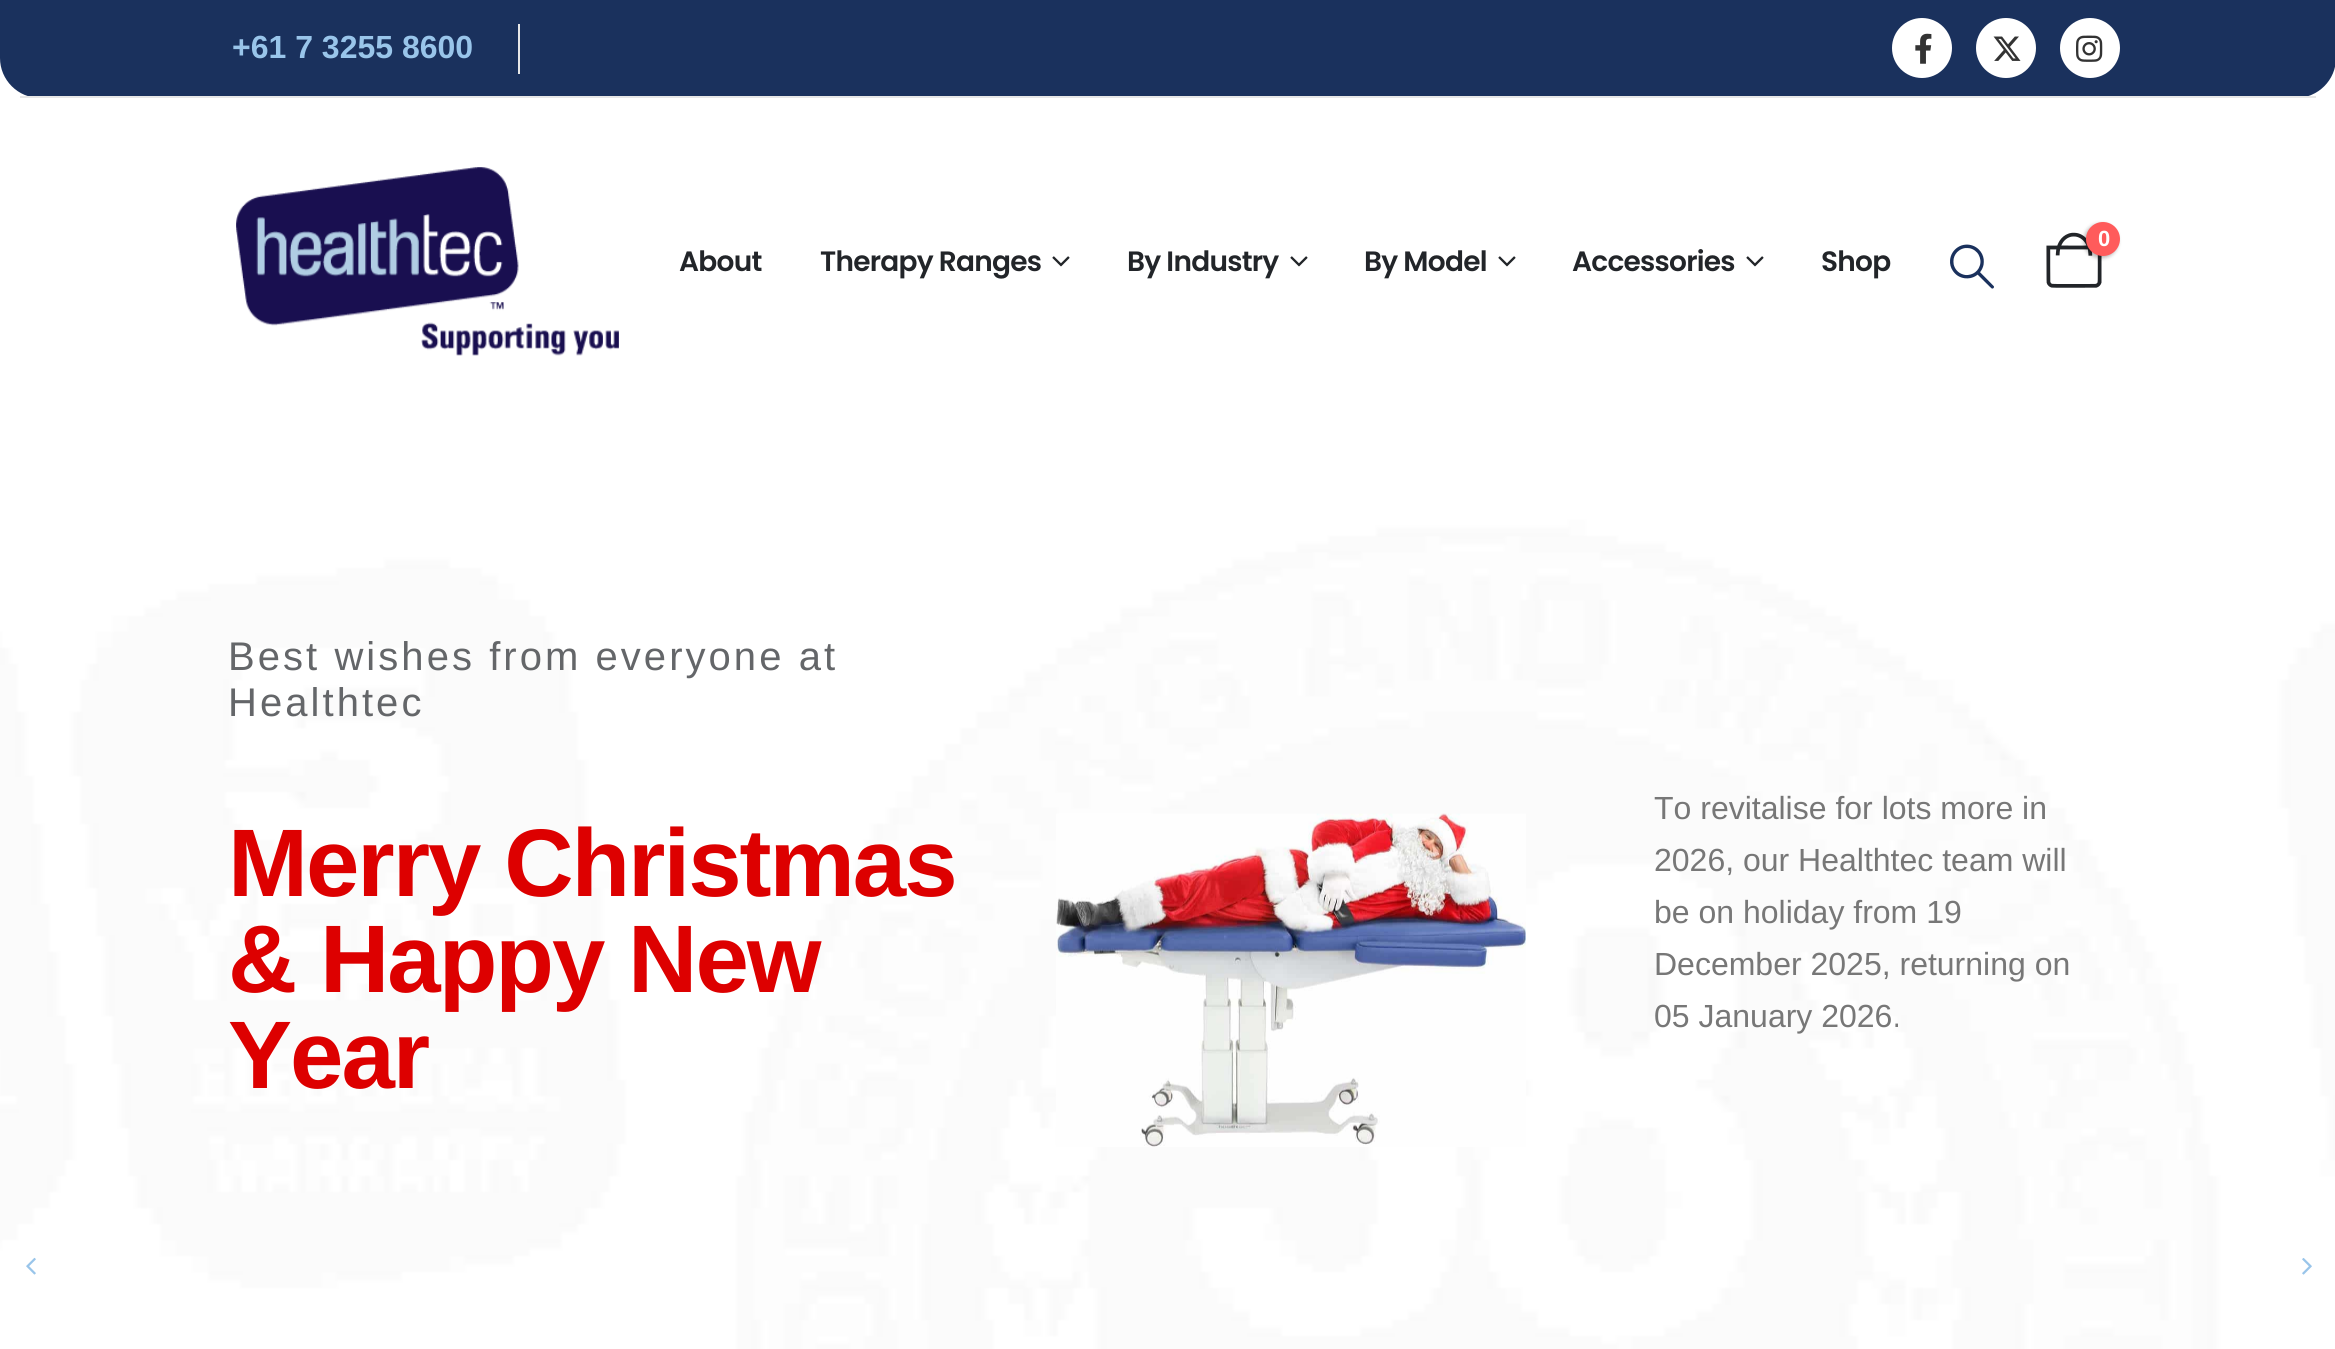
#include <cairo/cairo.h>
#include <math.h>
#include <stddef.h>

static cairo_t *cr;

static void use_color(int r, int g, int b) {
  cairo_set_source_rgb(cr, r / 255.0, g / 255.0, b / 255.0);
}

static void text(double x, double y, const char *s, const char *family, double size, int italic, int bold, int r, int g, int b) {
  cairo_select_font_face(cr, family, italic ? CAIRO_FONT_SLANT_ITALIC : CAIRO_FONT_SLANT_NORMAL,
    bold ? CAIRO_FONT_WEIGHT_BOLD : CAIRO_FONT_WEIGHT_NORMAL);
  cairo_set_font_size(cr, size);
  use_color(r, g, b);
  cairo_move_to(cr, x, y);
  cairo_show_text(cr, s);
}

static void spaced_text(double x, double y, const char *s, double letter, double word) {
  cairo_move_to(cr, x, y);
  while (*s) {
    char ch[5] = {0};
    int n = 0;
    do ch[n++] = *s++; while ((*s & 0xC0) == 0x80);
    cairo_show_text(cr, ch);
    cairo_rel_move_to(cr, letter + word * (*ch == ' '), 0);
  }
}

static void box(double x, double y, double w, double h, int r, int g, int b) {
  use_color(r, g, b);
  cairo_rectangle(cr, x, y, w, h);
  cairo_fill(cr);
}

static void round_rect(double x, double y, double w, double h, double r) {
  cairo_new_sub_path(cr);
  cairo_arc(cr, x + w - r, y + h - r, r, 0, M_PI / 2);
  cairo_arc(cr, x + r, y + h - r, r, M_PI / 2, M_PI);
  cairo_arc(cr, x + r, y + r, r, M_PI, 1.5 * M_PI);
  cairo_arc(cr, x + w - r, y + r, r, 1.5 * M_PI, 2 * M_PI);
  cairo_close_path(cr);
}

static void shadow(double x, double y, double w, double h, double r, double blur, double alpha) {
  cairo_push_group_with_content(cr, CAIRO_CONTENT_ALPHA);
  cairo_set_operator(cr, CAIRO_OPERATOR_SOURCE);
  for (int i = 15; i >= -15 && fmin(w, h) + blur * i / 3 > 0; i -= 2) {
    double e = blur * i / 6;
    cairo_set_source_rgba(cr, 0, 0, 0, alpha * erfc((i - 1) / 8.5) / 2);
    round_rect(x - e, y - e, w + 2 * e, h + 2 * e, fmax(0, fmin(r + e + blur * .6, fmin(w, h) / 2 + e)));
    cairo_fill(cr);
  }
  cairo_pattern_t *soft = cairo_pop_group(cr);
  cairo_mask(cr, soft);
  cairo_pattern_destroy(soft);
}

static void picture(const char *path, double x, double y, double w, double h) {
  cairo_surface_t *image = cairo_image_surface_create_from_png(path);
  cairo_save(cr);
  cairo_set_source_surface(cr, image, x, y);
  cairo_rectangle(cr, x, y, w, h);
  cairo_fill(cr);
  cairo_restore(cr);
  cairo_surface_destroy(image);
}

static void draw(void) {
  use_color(255, 255, 255);
  cairo_paint(cr);
  use_color(26, 49, 93);
  cairo_new_path(cr);
  cairo_move_to(cr, 0, 0);
  cairo_line_to(cr, 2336, 0);
  cairo_line_to(cr, 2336, 58);
  cairo_curve_to(cr, 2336, 80, 2318, 98, 2296, 98);
  cairo_line_to(cr, 40, 98);
  cairo_curve_to(cr, 18, 98, 0, 80, 0, 58);
  cairo_close_path(cr);
  cairo_fill(cr);
  box(20, 96, 2296, 2, 231, 231, 231);
  box(518, 24, 2, 50, 231, 231, 231);
  use_color(255, 255, 255);
  cairo_arc(cr, 1922, 48, 30, 0, 2 * M_PI);
  cairo_fill(cr);
  picture("img_01.png", 1915, 33, 17, 31);
  cairo_arc(cr, 2006, 48, 30, 0, 2 * M_PI);
  cairo_fill(cr);
  picture("img_02.png", 1993, 36, 28, 25);
  cairo_arc(cr, 2090, 48, 30, 0, 2 * M_PI);
  cairo_fill(cr);
  picture("img_03.png", 2076, 35, 27, 27);
  picture("img_04.png", 236, 167, 383, 189);
  picture("img_05.png", 2046, 232, 56, 56);
  use_color(0, 0, 0);
  shadow(2084, 224, 34, 34, 17, 2, 0.3);
  use_color(255, 91, 91);
  cairo_arc(cr, 2103, 239, 17, 0, 2 * M_PI);
  cairo_fill(cr);
  picture("img_06.png", 1052, 256, 18, 11);
  picture("img_06.png", 1290, 256, 18, 11);
  picture("img_06.png", 1498, 256, 18, 11);
  picture("img_06.png", 1746, 256, 18, 11);
  picture("img_07.png", 1950, 244, 44, 45);
  picture("img_08.png", 0, 424, 2335, 925);
  picture("img_09.png", 1056, 813, 470, 334);
  picture("img_10.png", 26, 1257, 10, 18);
  picture("img_11.png", 2302, 1258, 10, 17);
  text(232, 58, "+61 7 3255 8600", "Liberation Sans", 32, 0, 1, 153, 197, 234);
  text(2098, 246, "0", "Liberation Sans", 22, 0, 1, 255, 255, 255);
  cairo_select_font_face(cr, "Poppins SemiBold", CAIRO_FONT_SLANT_NORMAL, CAIRO_FONT_WEIGHT_NORMAL);
  cairo_set_font_size(cr, 28);
  use_color(34, 37, 41);
  spaced_text(679, 271, "About", -0.75, 0);
  spaced_text(820, 271, "Therapy Ranges", -0.75, 0);
  spaced_text(1127, 271, "By Industry", -0.75, 0);
  spaced_text(1364, 271, "By Model", -0.75, 0);
  spaced_text(1572, 271, "Accessories", -0.75, 0);
  spaced_text(1821, 271, "Shop", -0.75, 0);
  cairo_select_font_face(cr, "Liberation Sans", CAIRO_FONT_SLANT_NORMAL, CAIRO_FONT_WEIGHT_NORMAL);
  cairo_set_font_size(cr, 40);
  use_color(100, 102, 105);
  spaced_text(228, 670, "Best wishes from everyone at", 3.05, 0);
  spaced_text(228, 716, "Healthtec", 3.05, 0);
  cairo_select_font_face(cr, "Liberation Sans", CAIRO_FONT_SLANT_NORMAL, CAIRO_FONT_WEIGHT_BOLD);
  cairo_set_font_size(cr, 96);
  use_color(221, 0, 0);
  spaced_text(228, 896, "Merry Christmas", -2, 0);
  spaced_text(228, 992, "& Happy New", -2, 0);
  spaced_text(228, 1088, "Year", -2, 0);
  text(1654, 819, "To revitalise for lots more in", "Liberation Sans", 32, 0, 0, 119, 119, 119);
  text(1654, 871, "2026, our Healthtec team will", "Liberation Sans", 32, 0, 0, 119, 119, 119);
  text(1654, 923, "be on holiday from 19", "Liberation Sans", 32, 0, 0, 119, 119, 119);
  text(1654, 975, "December 2025, returning on", "Liberation Sans", 32, 0, 0, 119, 119, 119);
  text(1654, 1027, "05 January 2026.", "Liberation Sans", 32, 0, 0, 119, 119, 119);
}

int main(void) {
  cairo_surface_t *surface = cairo_image_surface_create(CAIRO_FORMAT_RGB24, 2335, 1349);
  cr = cairo_create(surface);
  cairo_font_options_t *options = cairo_font_options_create();
  cairo_font_options_set_hint_metrics(options, CAIRO_HINT_METRICS_OFF);
  cairo_font_options_set_hint_style(options, CAIRO_HINT_STYLE_NONE);
  cairo_set_font_options(cr, options);
  cairo_set_miter_limit(cr, 4);
  draw();
  cairo_surface_write_to_png(surface, "out.png");
  cairo_font_options_destroy(options);
  cairo_destroy(cr);
  cairo_surface_destroy(surface);
  return 0;
}
